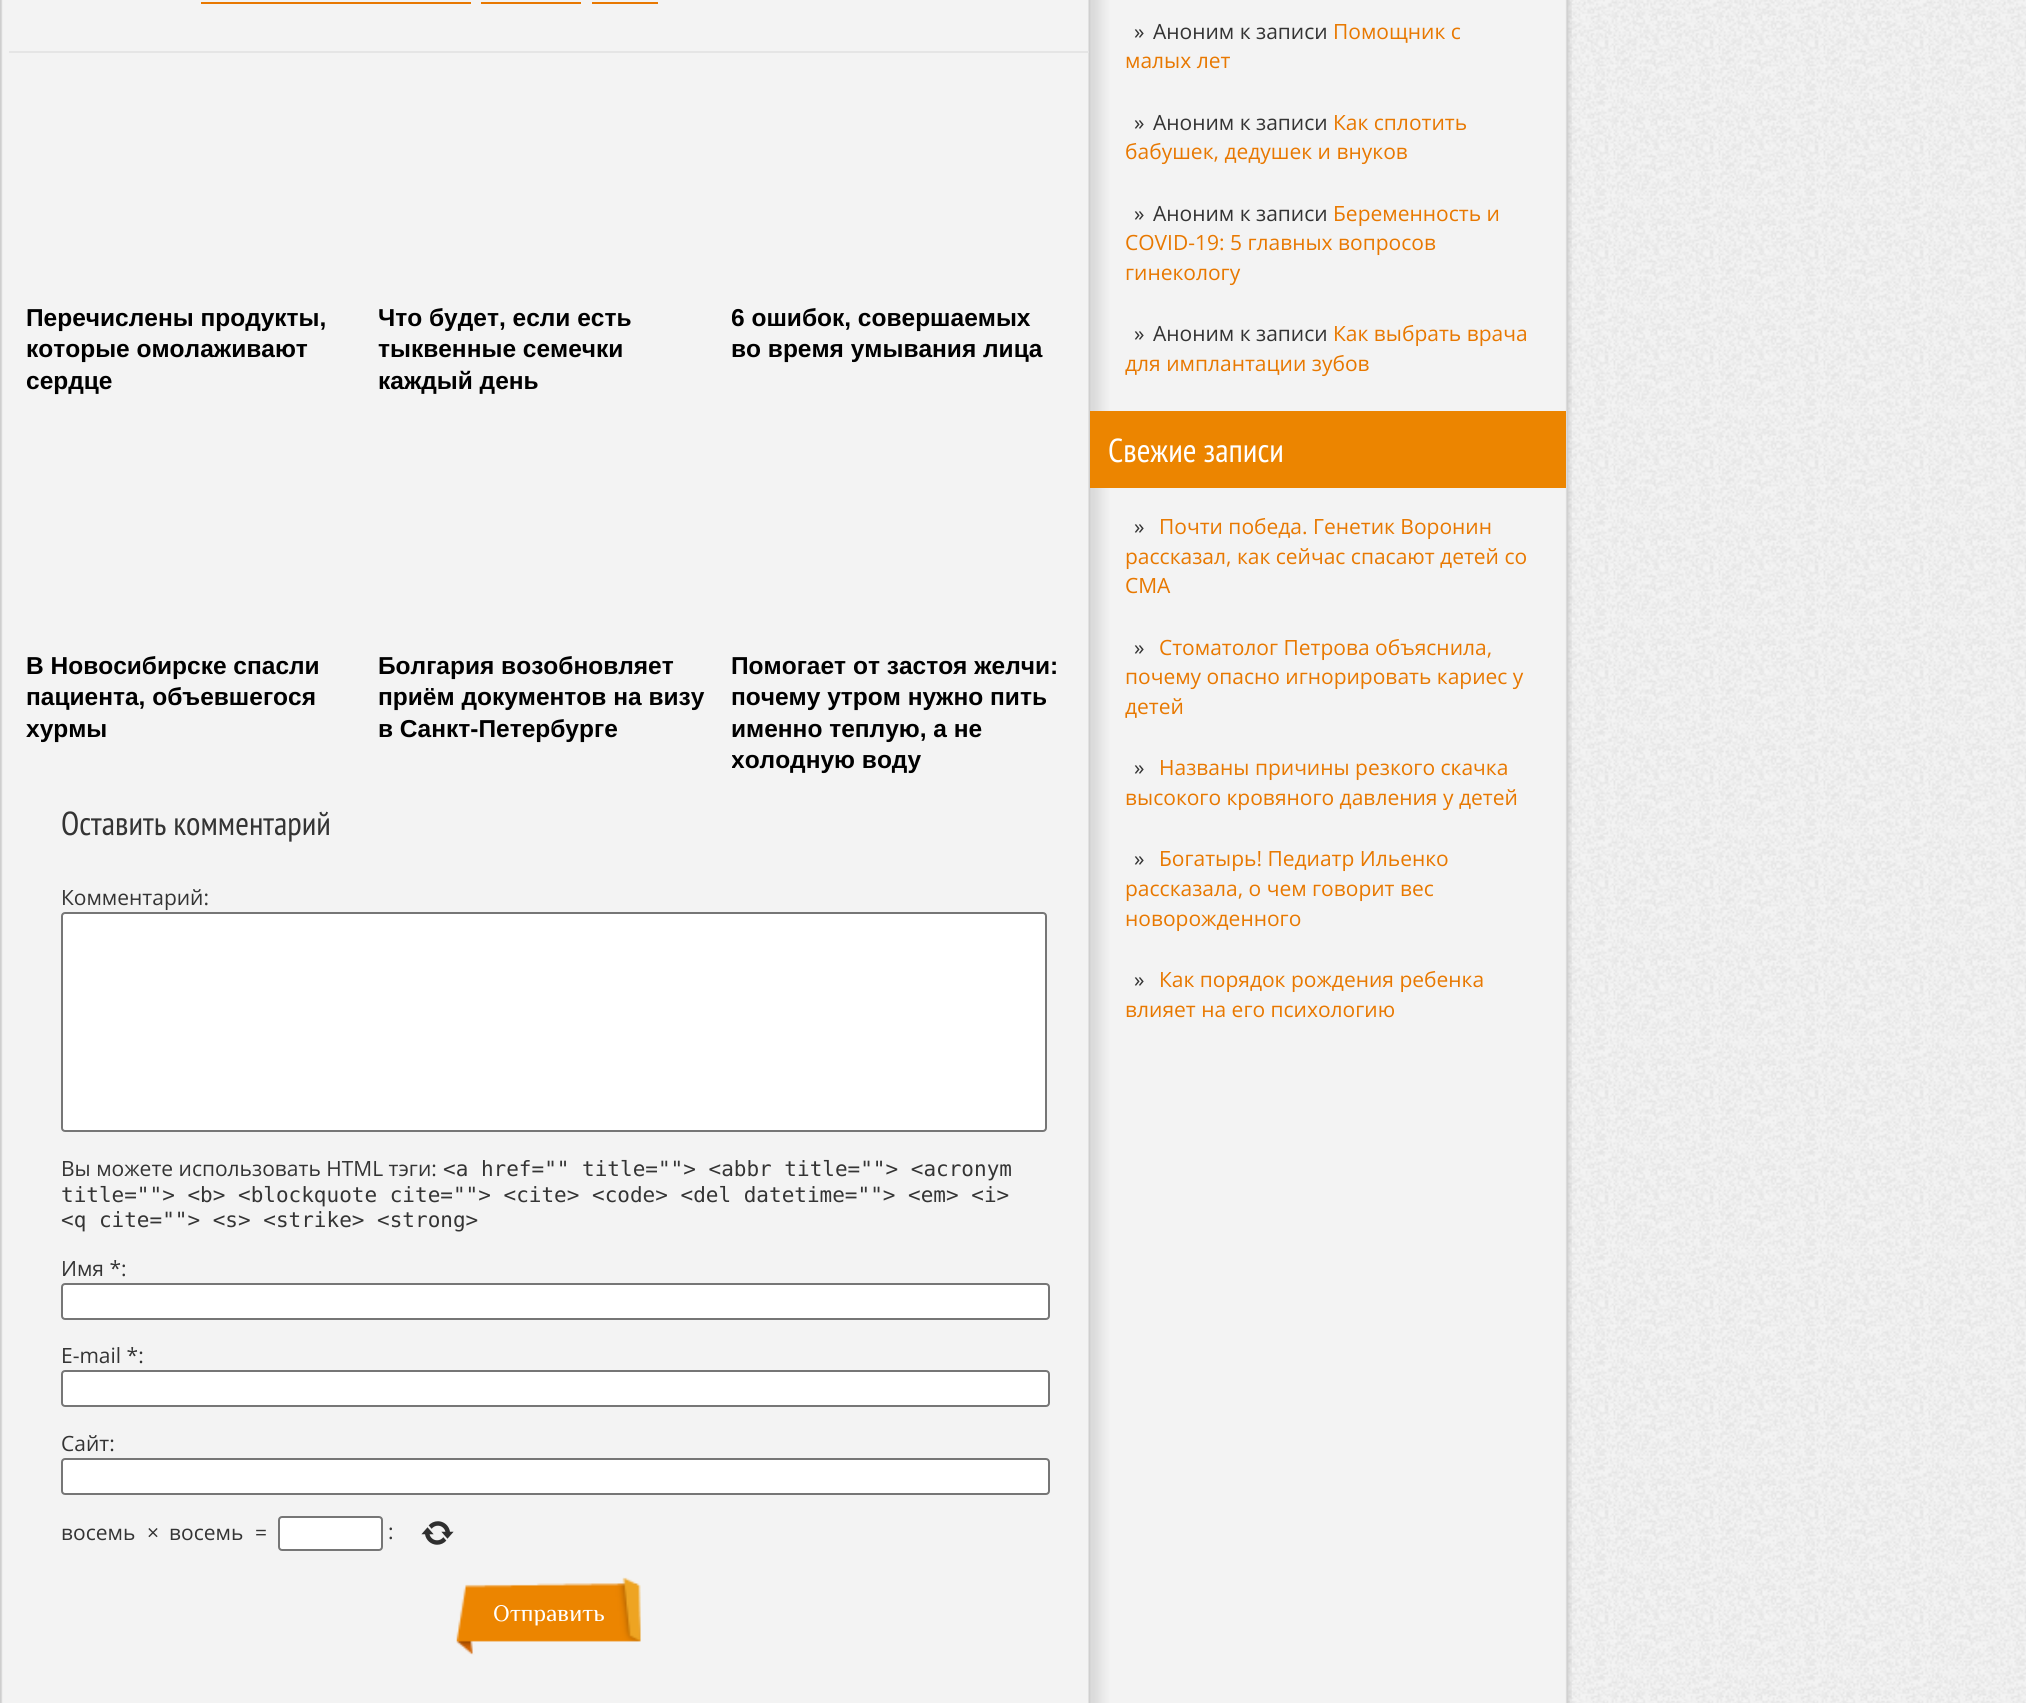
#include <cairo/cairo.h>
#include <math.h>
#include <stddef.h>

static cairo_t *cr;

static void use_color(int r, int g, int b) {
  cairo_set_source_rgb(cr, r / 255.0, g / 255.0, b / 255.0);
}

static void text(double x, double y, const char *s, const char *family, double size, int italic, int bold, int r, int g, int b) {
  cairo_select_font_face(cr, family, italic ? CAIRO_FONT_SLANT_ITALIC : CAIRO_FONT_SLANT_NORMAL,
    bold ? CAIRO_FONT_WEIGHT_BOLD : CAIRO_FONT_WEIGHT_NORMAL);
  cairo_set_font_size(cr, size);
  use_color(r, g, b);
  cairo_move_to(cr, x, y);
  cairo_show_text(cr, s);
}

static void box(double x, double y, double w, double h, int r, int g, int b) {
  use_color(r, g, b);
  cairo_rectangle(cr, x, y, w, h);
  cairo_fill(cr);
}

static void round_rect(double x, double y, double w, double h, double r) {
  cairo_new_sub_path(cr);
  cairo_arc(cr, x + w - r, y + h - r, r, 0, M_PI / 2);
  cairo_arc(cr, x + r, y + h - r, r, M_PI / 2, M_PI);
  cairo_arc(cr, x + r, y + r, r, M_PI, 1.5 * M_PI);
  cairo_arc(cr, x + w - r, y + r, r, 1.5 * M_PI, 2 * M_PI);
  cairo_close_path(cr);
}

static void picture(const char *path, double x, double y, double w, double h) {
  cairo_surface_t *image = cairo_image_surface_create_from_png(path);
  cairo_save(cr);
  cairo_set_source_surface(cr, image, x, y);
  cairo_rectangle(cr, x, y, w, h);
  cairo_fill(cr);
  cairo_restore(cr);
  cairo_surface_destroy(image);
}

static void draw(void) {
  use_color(255, 255, 255);
  cairo_paint(cr);
  picture("img_01.png", 1567, 0, 459, 1703);
  picture("img_02.png", 0, 0, 1572, 1703);
  box(201, 2, 270, 2, 232, 120, 0);
  box(481, 2, 100, 2, 232, 120, 0);
  box(592, 2, 66, 2, 232, 120, 0);
  box(9, 51, 1080, 2, 229, 229, 229);
  use_color(255, 255, 255);
  round_rect(62, 913, 984, 218, 3);
  cairo_fill_preserve(cr);
  use_color(118, 118, 118);
  cairo_stroke(cr);
  use_color(255, 255, 255);
  round_rect(62, 1284, 987, 35, 3);
  cairo_fill_preserve(cr);
  use_color(118, 118, 118);
  cairo_stroke(cr);
  use_color(255, 255, 255);
  round_rect(62, 1371, 987, 35, 3);
  cairo_fill_preserve(cr);
  use_color(118, 118, 118);
  cairo_stroke(cr);
  use_color(255, 255, 255);
  round_rect(62, 1459, 987, 35, 3);
  cairo_fill_preserve(cr);
  use_color(118, 118, 118);
  cairo_stroke(cr);
  use_color(255, 255, 255);
  round_rect(279, 1517, 103, 33, 3);
  cairo_fill_preserve(cr);
  use_color(118, 118, 118);
  cairo_stroke(cr);
  picture("img_03.png", 421, 1521, 33, 24);
  picture("img_04.png", 456, 1577, 185, 78);
  box(1090, 411, 476, 77, 236, 133, 0);
  text(26, 326, "Перечислены продукты,", "Liberation Sans", 24.5, 0, 1, 0, 0, 0);
  text(26, 357, "которые омолаживают", "Liberation Sans", 24.5, 0, 1, 0, 0, 0);
  text(26, 389, "сердце", "Liberation Sans", 24.5, 0, 1, 0, 0, 0);
  text(378, 326, "Что будет, если есть", "Liberation Sans", 24.5, 0, 1, 0, 0, 0);
  text(378, 357, "тыквенные семечки", "Liberation Sans", 24.5, 0, 1, 0, 0, 0);
  text(378, 389, "каждый день", "Liberation Sans", 24.5, 0, 1, 0, 0, 0);
  cairo_save(cr);
  cairo_rectangle(cr, 732, 301, 330, 63);
  cairo_clip(cr);
  text(731, 326, "6 ошибок, совершаемых", "Liberation Sans", 24.5, 0, 1, 0, 0, 0);
  cairo_restore(cr);
  text(731, 357, "во время умывания лица", "Liberation Sans", 24.5, 0, 1, 0, 0, 0);
  text(26, 674, "В Новосибирске спасли", "Liberation Sans", 24.5, 0, 1, 0, 0, 0);
  text(26, 705, "пациента, объевшегося", "Liberation Sans", 24.5, 0, 1, 0, 0, 0);
  text(26, 737, "хурмы", "Liberation Sans", 24.5, 0, 1, 0, 0, 0);
  text(378, 674, "Болгария возобновляет", "Liberation Sans", 24.5, 0, 1, 0, 0, 0);
  text(378, 705, "приём документов на визу", "Liberation Sans", 24.5, 0, 1, 0, 0, 0);
  text(378, 737, "в Санкт-Петербурге", "Liberation Sans", 24.5, 0, 1, 0, 0, 0);
  text(731, 674, "Помогает от застоя желчи:", "Liberation Sans", 24.5, 0, 1, 0, 0, 0);
  text(731, 705, "почему утром нужно пить", "Liberation Sans", 24.5, 0, 1, 0, 0, 0);
  text(731, 737, "именно теплую, а не", "Liberation Sans", 24.5, 0, 1, 0, 0, 0);
  cairo_save(cr);
  cairo_rectangle(cr, 732, 649, 330, 126);
  cairo_clip(cr);
  text(731, 768, "холодную воду", "Liberation Sans", 24.5, 0, 1, 0, 0, 0);
  cairo_restore(cr);
  text(61, 835, "Оставить комментарий", "PT Sans Narrow", 33.25, 0, 0, 52, 52, 52);
  text(61, 905, "Комментарий:", "Open Sans", 21, 0, 0, 52, 52, 52);
  text(61, 1176, "Вы можете использовать HTML тэги:", "Open Sans", 21, 0, 0, 52, 52, 52);
  text(443, 1176, "<a href=\"\" title=\"\"> <abbr title=\"\"> <acronym", "DejaVu Sans Mono", 21, 0, 0, 52, 52, 52);
  text(61, 1202, "title=\"\"> <b> <blockquote cite=\"\"> <cite> <code> <del datetime=\"\"> <em> <i>", "DejaVu Sans Mono", 21, 0, 0, 52, 52, 52);
  text(61, 1227, "<q cite=\"\"> <s> <strike> <strong>", "DejaVu Sans Mono", 21, 0, 0, 52, 52, 52);
  text(61, 1276, "Имя *:", "Open Sans", 21, 0, 0, 52, 52, 52);
  text(61, 1363, "E-mail *:", "Open Sans", 21, 0, 0, 52, 52, 52);
  text(61, 1451, "Сайт:", "Open Sans", 21, 0, 0, 52, 52, 52);
  text(61, 1540, "восемь", "Open Sans", 21, 0, 0, 52, 52, 52);
  text(147, 1540, "×", "Open Sans", 21, 0, 0, 52, 52, 52);
  text(169, 1540, "восемь", "Open Sans", 21, 0, 0, 52, 52, 52);
  text(255, 1540, "=", "Open Sans", 21, 0, 0, 52, 52, 52);
  text(388, 1539, ":", "Open Sans", 21, 0, 0, 52, 52, 52);
  text(493, 1621, "Отправить", "Philosopher", 23.5, 0, 0, 255, 255, 255);
  text(1134, 39, "»", "Open Sans", 21, 0, 0, 52, 52, 52);
  text(1153, 39, "Аноним к записи", "Open Sans", 21, 0, 0, 52, 52, 52);
  text(1333, 39, "Помощник с", "Open Sans", 21, 0, 0, 232, 120, 0);
  text(1125, 68, "малых лет", "Open Sans", 21, 0, 0, 232, 120, 0);
  text(1134, 130, "»", "Open Sans", 21, 0, 0, 52, 52, 52);
  text(1153, 130, "Аноним к записи", "Open Sans", 21, 0, 0, 52, 52, 52);
  text(1333, 130, "Как сплотить", "Open Sans", 21, 0, 0, 232, 120, 0);
  text(1125, 159, "бабушек, дедушек и внуков", "Open Sans", 21, 0, 0, 232, 120, 0);
  text(1134, 221, "»", "Open Sans", 21, 0, 0, 52, 52, 52);
  text(1153, 221, "Аноним к записи", "Open Sans", 21, 0, 0, 52, 52, 52);
  text(1333, 221, "Беременность и", "Open Sans", 21, 0, 0, 232, 120, 0);
  text(1125, 250, "COVID-19: 5 главных вопросов", "Open Sans", 21, 0, 0, 232, 120, 0);
  text(1125, 280, "гинекологу", "Open Sans", 21, 0, 0, 232, 120, 0);
  text(1134, 341, "»", "Open Sans", 21, 0, 0, 52, 52, 52);
  text(1153, 341, "Аноним к записи", "Open Sans", 21, 0, 0, 52, 52, 52);
  text(1333, 341, "Как выбрать врача", "Open Sans", 21, 0, 0, 232, 120, 0);
  text(1125, 371, "для имплантации зубов", "Open Sans", 21, 0, 0, 232, 120, 0);
  text(1108, 462, "Свежие записи", "PT Sans Narrow", 33.25, 0, 0, 255, 255, 255);
  text(1134, 534, "»", "Open Sans", 21, 0, 0, 52, 52, 52);
  text(1159, 534, "Почти победа. Генетик Воронин", "Open Sans", 21, 0, 0, 232, 120, 0);
  text(1125, 564, "рассказал, как сейчас спасают детей со", "Open Sans", 21, 0, 0, 232, 120, 0);
  text(1125, 593, "СМА", "Open Sans", 21, 0, 0, 232, 120, 0);
  text(1134, 655, "»", "Open Sans", 21, 0, 0, 52, 52, 52);
  text(1159, 655, "Стоматолог Петрова объяснила,", "Open Sans", 21, 0, 0, 232, 120, 0);
  text(1125, 684, "почему опасно игнорировать кариес у", "Open Sans", 21, 0, 0, 232, 120, 0);
  text(1125, 714, "детей", "Open Sans", 21, 0, 0, 232, 120, 0);
  text(1134, 775, "»", "Open Sans", 21, 0, 0, 52, 52, 52);
  text(1159, 775, "Названы причины резкого скачка", "Open Sans", 21, 0, 0, 232, 120, 0);
  text(1125, 805, "высокого кровяного давления у детей", "Open Sans", 21, 0, 0, 232, 120, 0);
  text(1134, 866, "»", "Open Sans", 21, 0, 0, 52, 52, 52);
  text(1159, 866, "Богатырь! Педиатр Ильенко", "Open Sans", 21, 0, 0, 232, 120, 0);
  text(1125, 896, "рассказала, о чем говорит вес", "Open Sans", 21, 0, 0, 232, 120, 0);
  text(1125, 926, "новорожденного", "Open Sans", 21, 0, 0, 232, 120, 0);
  text(1134, 987, "»", "Open Sans", 21, 0, 0, 52, 52, 52);
  text(1159, 987, "Как порядок рождения ребенка", "Open Sans", 21, 0, 0, 232, 120, 0);
  text(1125, 1017, "влияет на его психологию", "Open Sans", 21, 0, 0, 232, 120, 0);
}

int main(void) {
  cairo_surface_t *surface = cairo_image_surface_create(CAIRO_FORMAT_RGB24, 2026, 1703);
  cr = cairo_create(surface);
  cairo_font_options_t *options = cairo_font_options_create();
  cairo_font_options_set_hint_metrics(options, CAIRO_HINT_METRICS_OFF);
  cairo_font_options_set_hint_style(options, CAIRO_HINT_STYLE_NONE);
  cairo_set_font_options(cr, options);
  cairo_set_miter_limit(cr, 4);
  draw();
  cairo_surface_write_to_png(surface, "out.png");
  cairo_font_options_destroy(options);
  cairo_destroy(cr);
  cairo_surface_destroy(surface);
  return 0;
}
